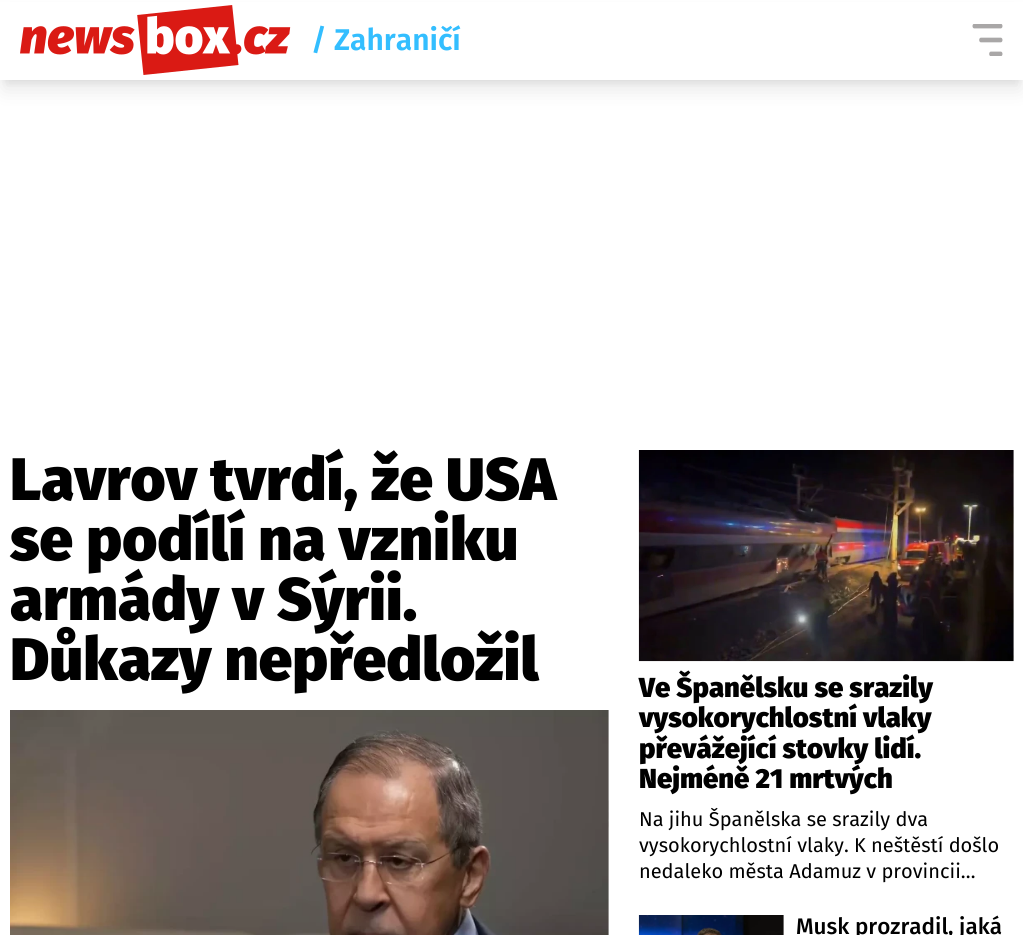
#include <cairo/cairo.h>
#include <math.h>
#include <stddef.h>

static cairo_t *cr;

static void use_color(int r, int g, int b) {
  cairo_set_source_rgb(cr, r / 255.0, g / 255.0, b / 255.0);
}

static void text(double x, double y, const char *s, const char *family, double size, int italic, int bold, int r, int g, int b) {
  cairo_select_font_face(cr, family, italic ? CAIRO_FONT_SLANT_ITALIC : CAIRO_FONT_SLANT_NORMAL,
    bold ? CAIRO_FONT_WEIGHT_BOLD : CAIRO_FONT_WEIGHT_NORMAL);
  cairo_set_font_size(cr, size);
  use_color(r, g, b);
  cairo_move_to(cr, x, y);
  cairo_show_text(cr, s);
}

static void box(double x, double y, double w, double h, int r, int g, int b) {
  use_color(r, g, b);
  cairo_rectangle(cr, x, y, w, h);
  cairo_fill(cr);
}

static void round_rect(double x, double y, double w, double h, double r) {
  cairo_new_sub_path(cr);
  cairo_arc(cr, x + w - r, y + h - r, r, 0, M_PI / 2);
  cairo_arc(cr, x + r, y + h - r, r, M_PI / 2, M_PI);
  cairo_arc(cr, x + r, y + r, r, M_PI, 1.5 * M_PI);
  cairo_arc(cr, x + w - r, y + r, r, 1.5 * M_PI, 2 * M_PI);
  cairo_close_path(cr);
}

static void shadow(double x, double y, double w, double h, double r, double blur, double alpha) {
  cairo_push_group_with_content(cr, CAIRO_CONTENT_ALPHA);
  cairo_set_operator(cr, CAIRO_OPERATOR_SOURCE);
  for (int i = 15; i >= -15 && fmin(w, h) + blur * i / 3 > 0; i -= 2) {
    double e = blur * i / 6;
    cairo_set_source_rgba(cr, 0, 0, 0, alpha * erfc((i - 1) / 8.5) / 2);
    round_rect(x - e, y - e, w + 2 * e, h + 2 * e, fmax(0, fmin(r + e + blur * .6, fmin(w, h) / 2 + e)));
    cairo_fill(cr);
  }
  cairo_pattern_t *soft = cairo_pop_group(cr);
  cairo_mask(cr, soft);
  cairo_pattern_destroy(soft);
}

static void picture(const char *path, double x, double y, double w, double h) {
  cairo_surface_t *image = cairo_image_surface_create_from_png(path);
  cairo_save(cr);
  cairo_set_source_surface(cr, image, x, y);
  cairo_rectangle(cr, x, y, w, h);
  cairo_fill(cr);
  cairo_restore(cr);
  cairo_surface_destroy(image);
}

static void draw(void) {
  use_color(255, 255, 255);
  cairo_paint(cr);
  use_color(0, 0, 0);
  shadow(5, 10, 1014, 70, 0, 4, 0.1);
  shadow(4, 16, 1016, 73, 0, 9.5, 0.1);
  box(0, 2, 1023, 78, 255, 255, 255);
  picture("img_01.png", 20, 5, 271, 70);
  picture("img_02.png", 972, 24, 31, 32);
  picture("img_04.png", 608, 710, 1, 225);
  picture("img_03.png", 10, 710, 599, 225);
  picture("img_06.png", 1013, 450, 1, 211);
  picture("img_05.png", 638, 450, 376, 212);
  box(783, 915, 1, 20, 240, 240, 240);
  picture("img_07.png", 638, 915, 146, 20);
  text(311, 50, "/ Zahraničí", "Fira Sans SemiBold", 30, 0, 0, 51, 190, 255);
  text(10, 500, "Lavrov tvrdí, že USA", "Fira Sans Black", 60, 0, 0, 0, 0, 0);
  text(10, 560, "se podílí na vzniku", "Fira Sans Black", 60, 0, 0, 0, 0, 0);
  text(10, 620, "armády v Sýrii.", "Fira Sans Black", 60, 0, 0, 0, 0, 0);
  text(10, 680, "Důkazy nepředložil", "Fira Sans Black", 60, 0, 0, 0, 0, 0);
  text(639, 697, "Ve Španělsku se srazily", "Fira Sans Black", 27.5, 0, 0, 0, 0, 0);
  text(639, 727, "vysokorychlostní vlaky", "Fira Sans Black", 27.5, 0, 0, 0, 0, 0);
  text(639, 758, "převážející stovky lidí.", "Fira Sans Black", 27.5, 0, 0, 0, 0, 0);
  text(639, 788, "Nejméně 21 mrtvých", "Fira Sans Black", 27.5, 0, 0, 0, 0, 0);
  text(639, 826, "Na jihu Španělska se srazily dva", "Fira Sans", 20, 0, 0, 0, 0, 0);
  text(639, 852, "vysokorychlostní vlaky. K neštěstí došlo", "Fira Sans", 20, 0, 0, 0, 0, 0);
  text(639, 878, "nedaleko města Adamuz v provincii…", "Fira Sans", 20, 0, 0, 0, 0, 0);
  text(796, 934, "Musk prozradil, jaká", "Fira Sans Medium", 22.5, 0, 0, 0, 0, 0);
}

int main(void) {
  cairo_surface_t *surface = cairo_image_surface_create(CAIRO_FORMAT_RGB24, 1023, 935);
  cr = cairo_create(surface);
  cairo_font_options_t *options = cairo_font_options_create();
  cairo_font_options_set_hint_metrics(options, CAIRO_HINT_METRICS_OFF);
  cairo_font_options_set_hint_style(options, CAIRO_HINT_STYLE_NONE);
  cairo_set_font_options(cr, options);
  cairo_set_miter_limit(cr, 4);
  draw();
  cairo_surface_write_to_png(surface, "out.png");
  cairo_font_options_destroy(options);
  cairo_destroy(cr);
  cairo_surface_destroy(surface);
  return 0;
}
